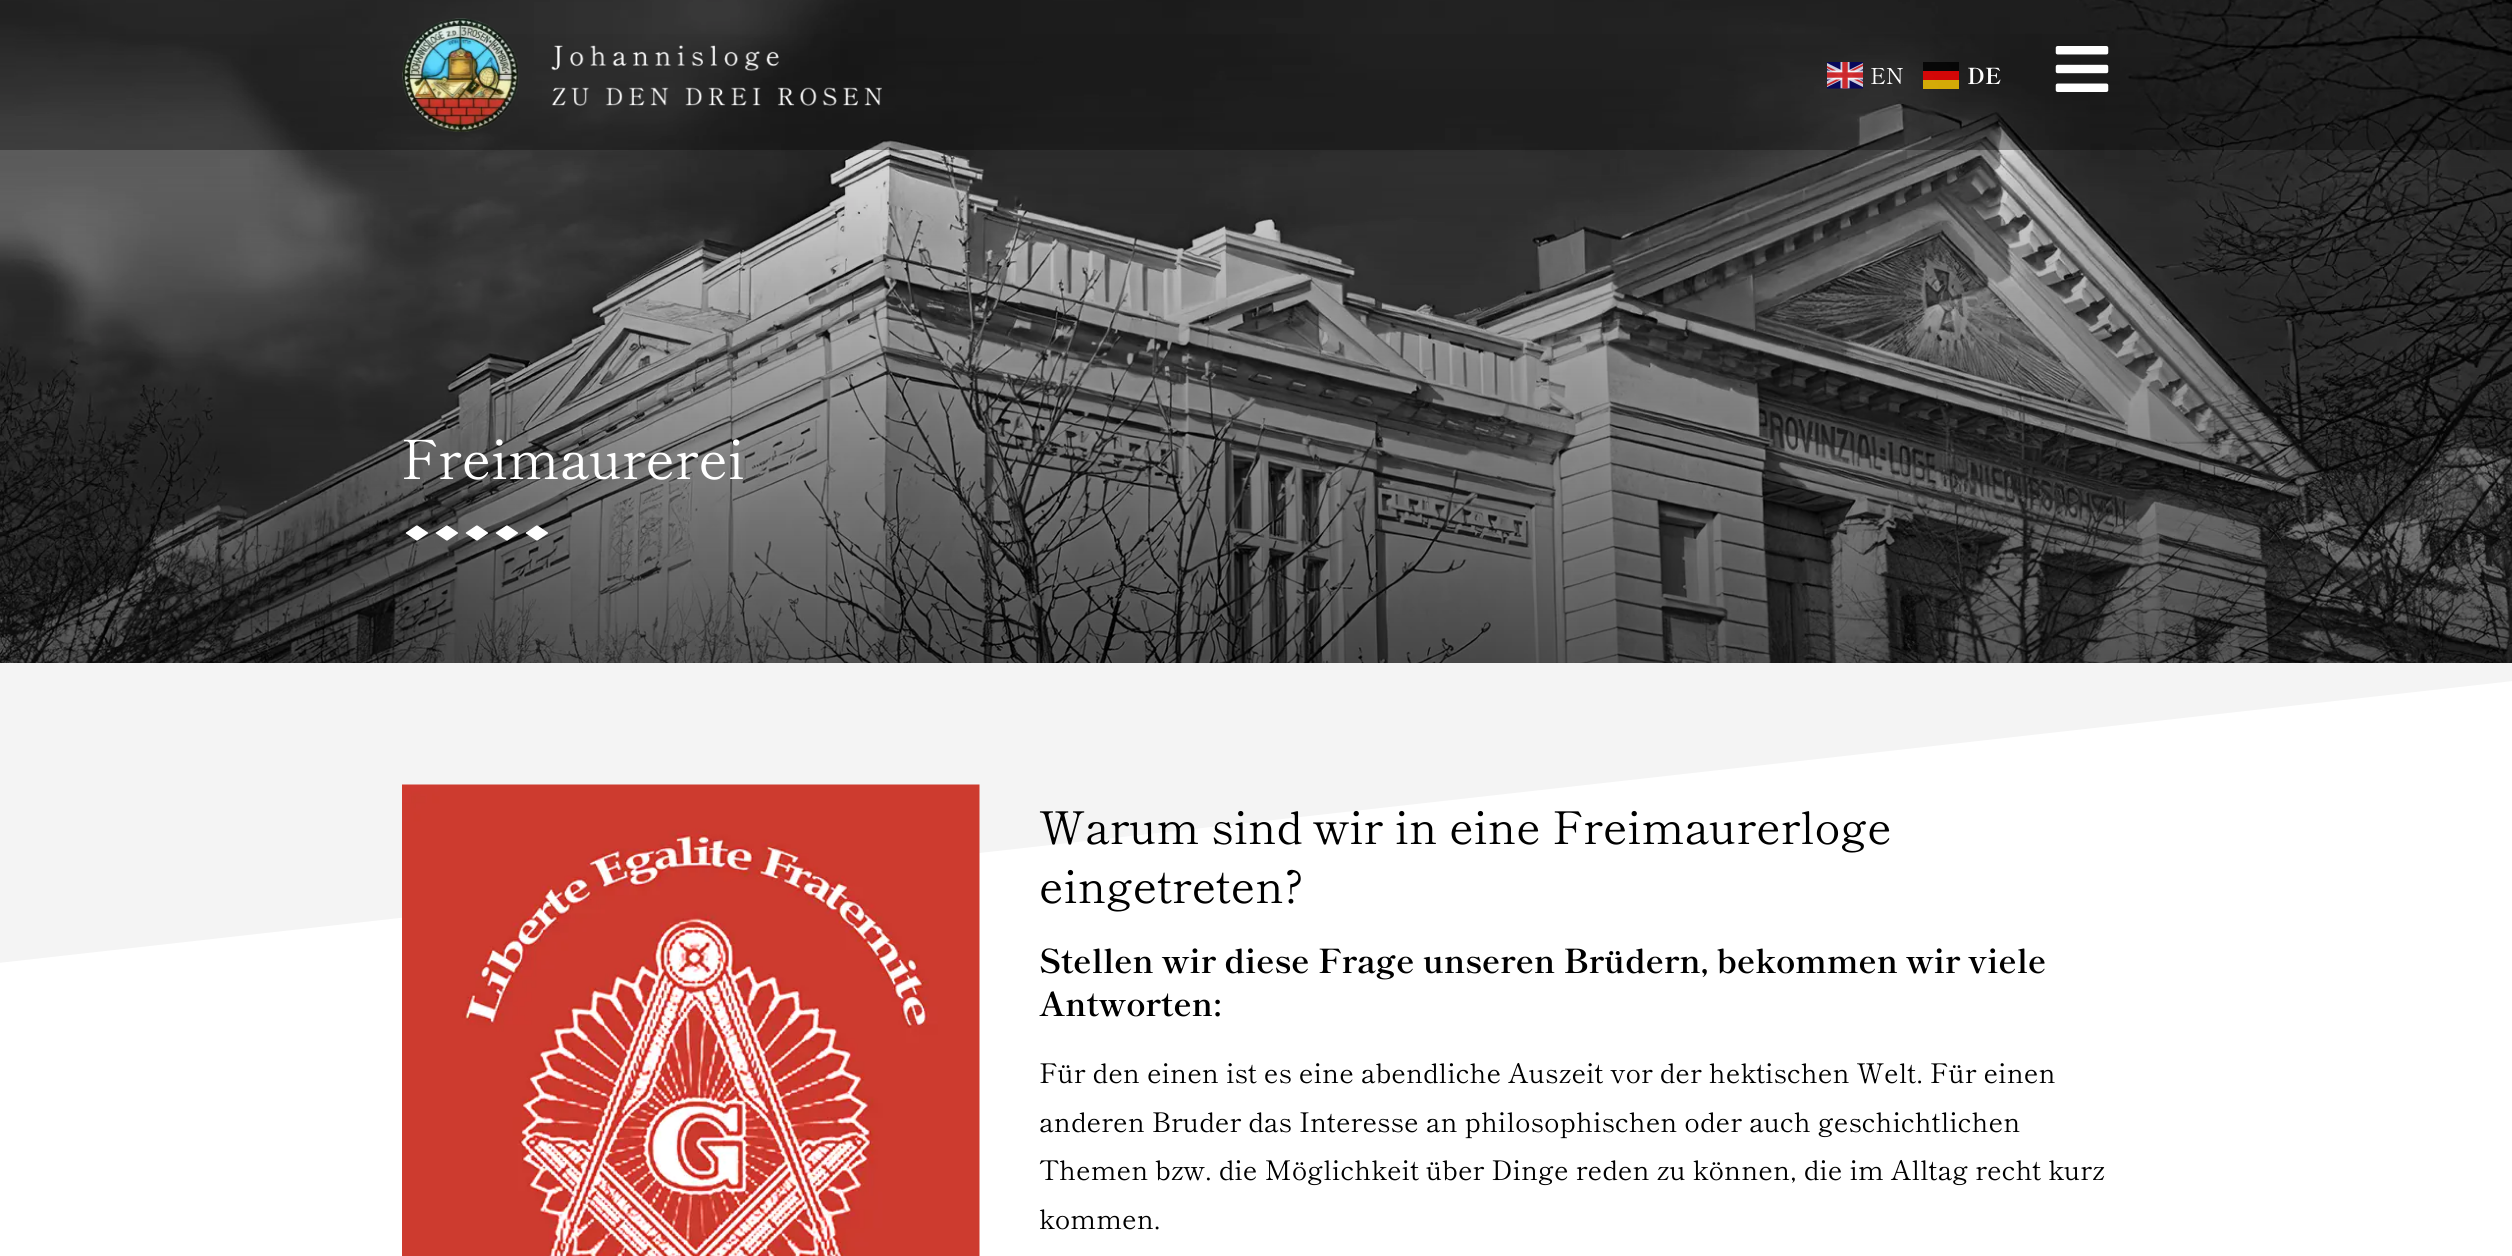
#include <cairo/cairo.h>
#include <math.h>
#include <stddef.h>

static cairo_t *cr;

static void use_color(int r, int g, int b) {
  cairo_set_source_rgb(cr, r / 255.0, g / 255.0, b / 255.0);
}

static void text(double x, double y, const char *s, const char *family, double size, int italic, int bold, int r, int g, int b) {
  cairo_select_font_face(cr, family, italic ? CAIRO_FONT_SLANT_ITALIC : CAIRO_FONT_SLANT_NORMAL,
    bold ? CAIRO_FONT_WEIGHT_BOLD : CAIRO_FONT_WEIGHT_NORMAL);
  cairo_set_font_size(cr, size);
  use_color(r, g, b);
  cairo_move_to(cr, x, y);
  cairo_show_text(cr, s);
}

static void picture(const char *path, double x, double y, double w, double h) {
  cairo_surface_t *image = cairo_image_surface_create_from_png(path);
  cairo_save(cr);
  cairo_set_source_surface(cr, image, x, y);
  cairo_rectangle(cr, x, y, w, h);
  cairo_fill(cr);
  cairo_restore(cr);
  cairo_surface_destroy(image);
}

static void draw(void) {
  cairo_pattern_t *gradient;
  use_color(255, 255, 255);
  cairo_paint(cr);
  picture("img_04.png", 0, 0, 2512, 663);
  gradient = cairo_pattern_create_linear(1256, 0, 1256, 665);
  cairo_pattern_add_color_stop_rgba(gradient, 0, 0, 0, 0, 0);
  cairo_pattern_add_color_stop_rgba(gradient, 1, 0, 0, 0, 0.66);
  cairo_set_source(cr, gradient);
  cairo_pattern_destroy(gradient);
  cairo_rectangle(cr, 0, 34, 2512, 629);
  cairo_fill(cr);
  cairo_set_source_rgba(cr, 0, 0, 0, 0.33);
  cairo_rectangle(cr, 0, 0, 2512, 150);
  cairo_fill(cr);
  picture("img_01.png", 402, 18, 480, 114);
  picture("img_02.png", 1827, 62, 36, 27);
  cairo_set_source_rgba(cr, 1, 0.8, 0, 0.8);
  cairo_rectangle(cr, 1923, 80, 36, 9);
  cairo_fill(cr);
  cairo_set_source_rgba(cr, 0, 0, 0, 0.8);
  cairo_rectangle(cr, 1923, 62, 36, 9);
  cairo_fill(cr);
  cairo_set_source_rgba(cr, 1, 0, 0, 0.8);
  cairo_rectangle(cr, 1923, 71, 36, 9);
  cairo_fill(cr);
  picture("img_03.png", 2055, 46, 54, 46);
  picture("img_05.png", 405, 525, 143, 16);
  use_color(244, 244, 244);
  cairo_new_path(cr);
  cairo_move_to(cr, 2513, 681);
  cairo_line_to(cr, 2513, 663);
  cairo_line_to(cr, -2, 663);
  cairo_line_to(cr, -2, 963);
  cairo_close_path(cr);
  cairo_fill(cr);
  picture("img_06.png", 402, 784, 578, 472);
  text(1870, 84, "EN", "Shippori Mincho B1", 22, 0, 0, 255, 255, 255);
  text(1967, 84, "DE", "Shippori Mincho B1", 22, 0, 1, 255, 255, 255);
  text(401, 479, "Freimaurerei", "Shippori Mincho B1", 54, 0, 0, 255, 255, 255);
  text(1039, 844, "Warum sind wir in eine Freimaurerloge", "Shippori Mincho B1", 45, 0, 0, 0, 0, 0);
  text(1039, 903, "eingetreten?", "Shippori Mincho B1", 45, 0, 0, 0, 0, 0);
  text(1039, 973, "Stellen wir diese Frage unseren Brüdern, bekommen wir viele", "Shippori Mincho B1", 33, 0, 1, 0, 0, 0);
  text(1039, 1016, "Antworten:", "Shippori Mincho B1", 33, 0, 1, 0, 0, 0);
  text(1039, 1083, "Für den einen ist es eine abendliche Auszeit vor der hektischen Welt. Für einen", "Shippori Mincho B1", 27, 0, 0, 0, 0, 0);
  text(1039, 1132, "anderen Bruder das Interesse an philosophischen oder auch geschichtlichen", "Shippori Mincho B1", 27, 0, 0, 0, 0, 0);
  text(1039, 1180, "Themen bzw. die Möglichkeit über Dinge reden zu können, die im Alltag recht kurz", "Shippori Mincho B1", 27, 0, 0, 0, 0, 0);
  text(1039, 1229, "kommen.", "Shippori Mincho B1", 27, 0, 0, 0, 0, 0);
}

int main(void) {
  cairo_surface_t *surface = cairo_image_surface_create(CAIRO_FORMAT_RGB24, 2512, 1256);
  cr = cairo_create(surface);
  cairo_font_options_t *options = cairo_font_options_create();
  cairo_font_options_set_hint_metrics(options, CAIRO_HINT_METRICS_OFF);
  cairo_font_options_set_hint_style(options, CAIRO_HINT_STYLE_NONE);
  cairo_set_font_options(cr, options);
  cairo_set_miter_limit(cr, 4);
  draw();
  cairo_surface_write_to_png(surface, "out.png");
  cairo_font_options_destroy(options);
  cairo_destroy(cr);
  cairo_surface_destroy(surface);
  return 0;
}
